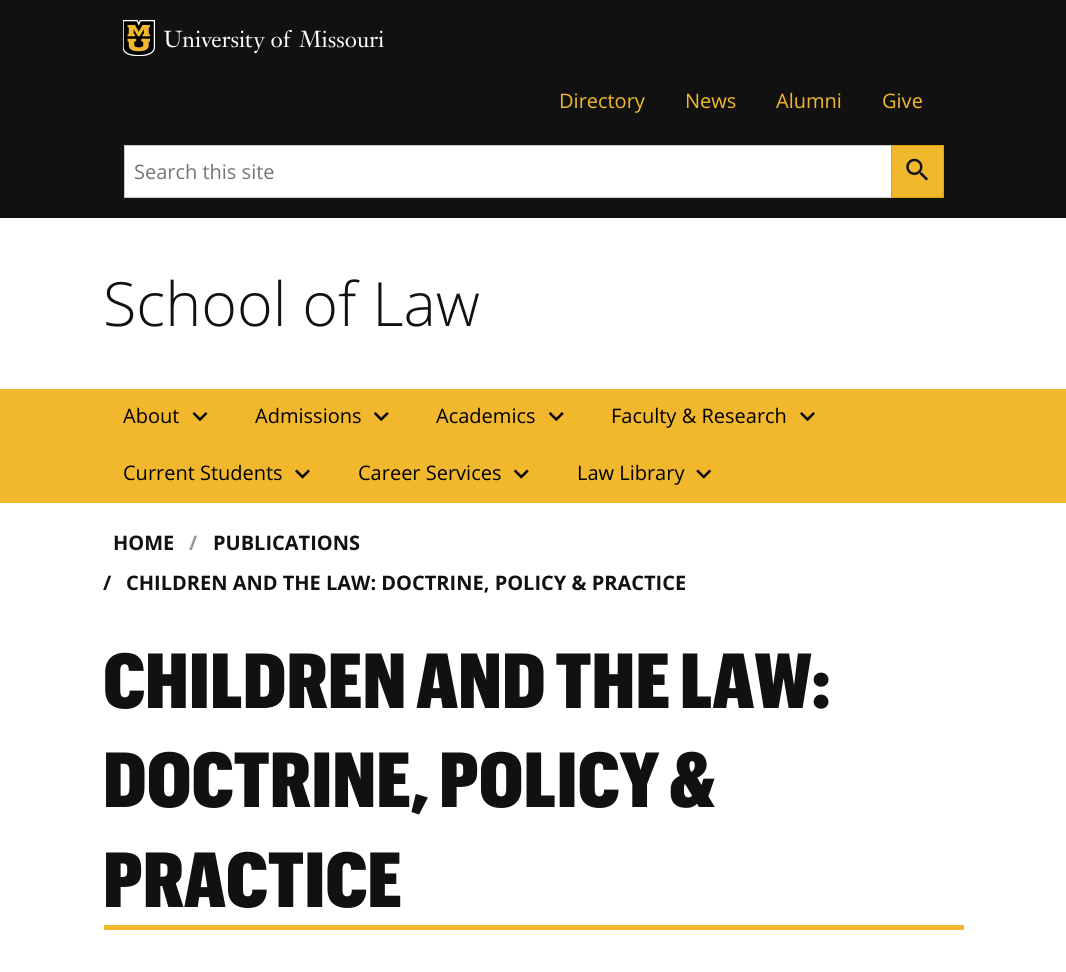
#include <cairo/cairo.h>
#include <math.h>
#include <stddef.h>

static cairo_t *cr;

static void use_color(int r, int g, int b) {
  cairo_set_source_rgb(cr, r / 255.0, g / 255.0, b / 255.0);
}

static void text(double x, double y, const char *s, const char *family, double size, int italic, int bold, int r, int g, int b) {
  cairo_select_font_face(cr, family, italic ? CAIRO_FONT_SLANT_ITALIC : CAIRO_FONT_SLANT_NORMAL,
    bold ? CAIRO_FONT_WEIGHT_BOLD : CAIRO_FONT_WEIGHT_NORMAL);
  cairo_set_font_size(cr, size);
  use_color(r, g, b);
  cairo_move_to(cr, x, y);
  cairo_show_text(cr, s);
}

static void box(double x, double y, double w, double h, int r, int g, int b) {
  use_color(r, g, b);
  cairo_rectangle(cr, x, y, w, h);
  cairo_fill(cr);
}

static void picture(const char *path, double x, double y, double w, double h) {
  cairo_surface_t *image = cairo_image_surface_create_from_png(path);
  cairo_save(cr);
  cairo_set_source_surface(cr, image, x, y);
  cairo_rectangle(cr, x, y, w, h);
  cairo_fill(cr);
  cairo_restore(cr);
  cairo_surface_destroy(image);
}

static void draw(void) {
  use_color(255, 255, 255);
  cairo_paint(cr);
  box(0, 0, 1066, 218, 17, 17, 17);
  picture("img_01.png", 123, 20, 32, 36);
  picture("img_02.png", 164, 30, 220, 24);
  box(125, 146, 766, 51, 255, 255, 255);
  cairo_rectangle(cr, 124.5, 145.5, 768, 52);
  use_color(204, 204, 204);
  cairo_set_line_width(cr, 1);
  cairo_stroke(cr);
  use_color(241, 184, 45);
  cairo_rectangle(cr, 891.5, 145.5, 52, 52);
  cairo_fill_preserve(cr);
  use_color(220, 161, 15);
  cairo_stroke(cr);
  picture("img_03.png", 906, 158, 22, 23);
  box(0, 389, 1066, 114, 241, 184, 45);
  picture("img_04.png", 192, 412, 16, 10);
  picture("img_05.png", 373, 412, 16, 10);
  picture("img_05.png", 548, 412, 16, 10);
  picture("img_06.png", 800, 412, 15, 10);
  picture("img_07.png", 295, 469, 15, 10);
  picture("img_08.png", 513, 469, 16, 10);
  picture("img_09.png", 696, 469, 16, 10);
  box(104, 925, 860, 5, 241, 184, 45);
  text(559, 108, "Directory", "Open Sans", 20, 0, 0, 241, 184, 45);
  text(685, 108, "News", "Open Sans", 20, 0, 0, 241, 184, 45);
  text(776, 108, "Alumni", "Open Sans", 20, 0, 0, 241, 184, 45);
  text(882, 108, "Give", "Open Sans", 20, 0, 0, 241, 184, 45);
  text(134, 179, "Search this site", "Open Sans", 20, 0, 0, 117, 117, 117);
  text(103, 326, "School of Law", "Open Sans Light", 61, 0, 0, 17, 17, 17);
  text(123, 423, "About", "Open Sans", 20, 0, 0, 0, 0, 0);
  text(255, 423, "Admissions", "Open Sans", 20, 0, 0, 0, 0, 0);
  text(436, 423, "Academics", "Open Sans", 20, 0, 0, 0, 0, 0);
  text(611, 423, "Faculty & Research", "Open Sans", 20, 0, 0, 0, 0, 0);
  text(123, 480, "Current Students", "Open Sans", 20, 0, 0, 0, 0, 0);
  text(358, 480, "Career Services", "Open Sans", 20, 0, 0, 0, 0, 0);
  text(577, 480, "Law Library", "Open Sans", 20, 0, 0, 0, 0, 0);
  text(113, 550, "HOME", "Open Sans", 20, 0, 1, 17, 17, 17);
  text(189, 550, "/", "Open Sans", 20, 0, 1, 153, 153, 153);
  text(213, 550, "PUBLICATIONS", "Open Sans", 20, 0, 1, 17, 17, 17);
  text(103, 590, "/", "Open Sans", 20, 0, 1, 17, 17, 17);
  text(126, 590, "CHILDREN AND THE LAW: DOCTRINE, POLICY & PRACTICE", "Open Sans", 20, 0, 1, 17, 17, 17);
  text(103, 708, "CHILDREN AND THE LAW:", "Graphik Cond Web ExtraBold", 76.25, 0, 0, 17, 17, 17);
  text(103, 807, "DOCTRINE, POLICY &", "Graphik Cond Web ExtraBold", 76.25, 0, 0, 17, 17, 17);
  text(103, 907, "PRACTICE", "Graphik Cond Web ExtraBold", 76.25, 0, 0, 17, 17, 17);
}

int main(void) {
  cairo_surface_t *surface = cairo_image_surface_create(CAIRO_FORMAT_RGB24, 1066, 972);
  cr = cairo_create(surface);
  cairo_font_options_t *options = cairo_font_options_create();
  cairo_font_options_set_hint_metrics(options, CAIRO_HINT_METRICS_OFF);
  cairo_font_options_set_hint_style(options, CAIRO_HINT_STYLE_NONE);
  cairo_set_font_options(cr, options);
  cairo_set_miter_limit(cr, 4);
  draw();
  cairo_surface_write_to_png(surface, "out.png");
  cairo_font_options_destroy(options);
  cairo_destroy(cr);
  cairo_surface_destroy(surface);
  return 0;
}
